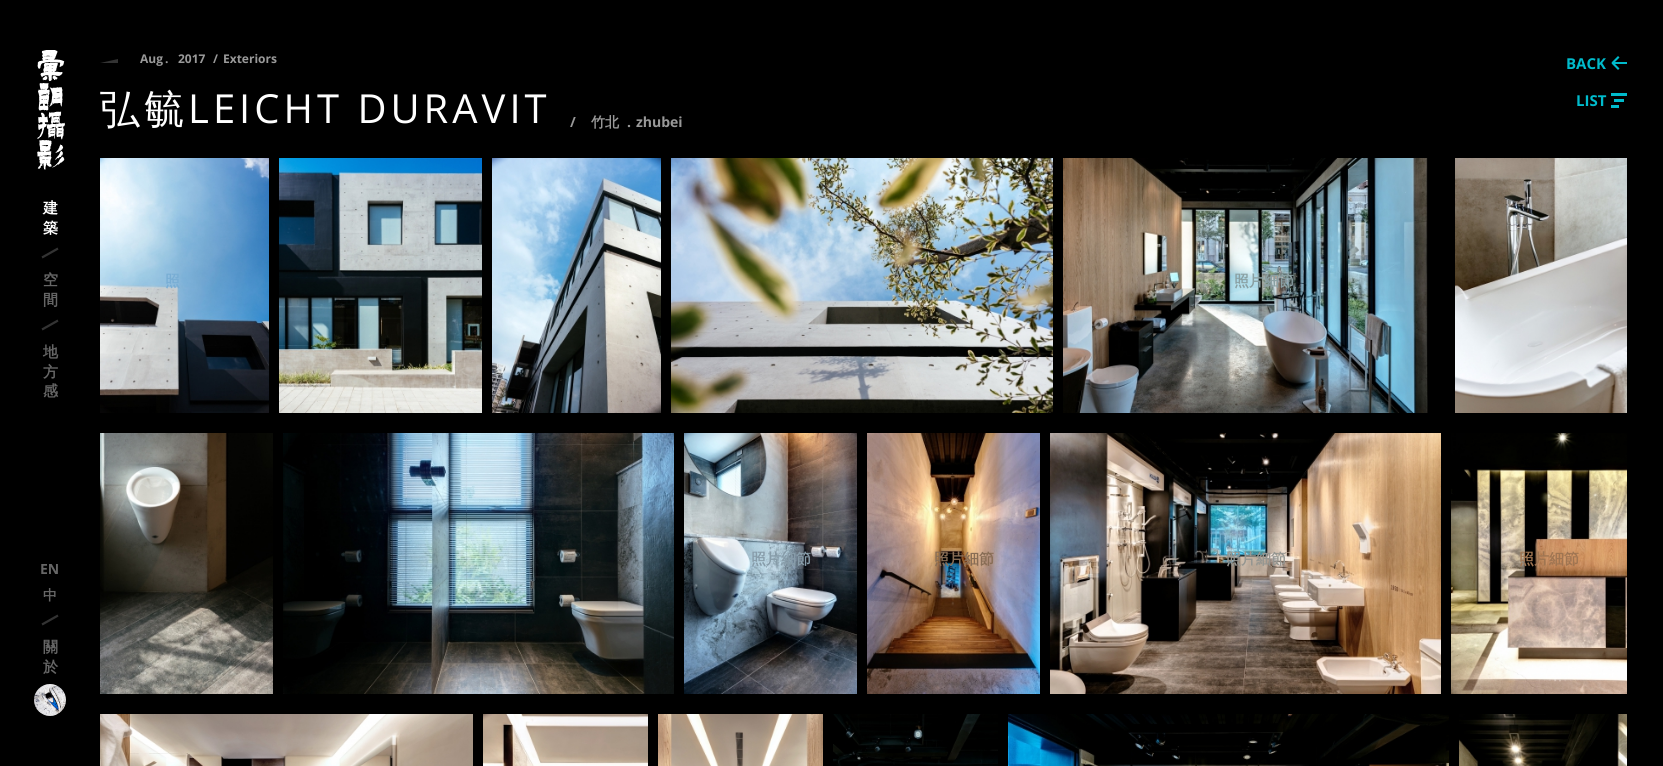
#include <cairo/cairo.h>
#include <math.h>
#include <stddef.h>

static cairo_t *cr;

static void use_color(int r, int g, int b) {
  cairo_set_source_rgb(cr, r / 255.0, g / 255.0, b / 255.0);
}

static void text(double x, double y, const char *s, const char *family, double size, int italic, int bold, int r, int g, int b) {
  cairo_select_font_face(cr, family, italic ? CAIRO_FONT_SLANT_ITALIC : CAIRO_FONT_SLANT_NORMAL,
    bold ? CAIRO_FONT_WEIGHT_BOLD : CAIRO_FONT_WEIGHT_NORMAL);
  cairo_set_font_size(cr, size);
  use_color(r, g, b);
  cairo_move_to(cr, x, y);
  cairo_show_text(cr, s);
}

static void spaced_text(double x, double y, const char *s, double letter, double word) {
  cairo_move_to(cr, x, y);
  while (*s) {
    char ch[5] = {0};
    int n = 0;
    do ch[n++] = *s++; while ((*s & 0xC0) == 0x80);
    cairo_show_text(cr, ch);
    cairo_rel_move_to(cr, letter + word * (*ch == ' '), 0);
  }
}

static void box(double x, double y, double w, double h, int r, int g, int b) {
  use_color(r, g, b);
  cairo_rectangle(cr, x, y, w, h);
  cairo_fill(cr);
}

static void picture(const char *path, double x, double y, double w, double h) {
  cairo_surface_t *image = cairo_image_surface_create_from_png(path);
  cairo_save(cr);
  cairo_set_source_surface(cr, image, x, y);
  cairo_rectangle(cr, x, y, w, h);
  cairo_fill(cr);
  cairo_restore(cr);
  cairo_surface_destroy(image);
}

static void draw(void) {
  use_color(0, 0, 0);
  cairo_paint(cr);
  picture("img_01.png", 37, 50, 28, 120);
  use_color(51, 51, 51);
  cairo_new_path(cr);
  cairo_move_to(cr, 41.5, 256.5);
  cairo_line_to(cr, 57.5, 247.5);
  cairo_line_to(cr, 58.5, 249.5);
  cairo_line_to(cr, 42.5, 258.5);
  cairo_close_path(cr);
  cairo_fill(cr);
  cairo_new_path(cr);
  cairo_move_to(cr, 41.5, 328.5);
  cairo_line_to(cr, 57.5, 319.5);
  cairo_line_to(cr, 58.5, 321.5);
  cairo_line_to(cr, 42.5, 330.5);
  cairo_close_path(cr);
  cairo_fill(cr);
  cairo_new_path(cr);
  cairo_move_to(cr, 41.5, 623.5);
  cairo_line_to(cr, 57.5, 614.5);
  cairo_line_to(cr, 58.5, 616.5);
  cairo_line_to(cr, 42.5, 625.5);
  cairo_close_path(cr);
  cairo_fill(cr);
  picture("img_02.png", 34, 684, 32, 32);
  cairo_new_path(cr);
  cairo_move_to(cr, 118, 63);
  cairo_line_to(cr, 100, 63);
  cairo_line_to(cr, 118, 59);
  cairo_close_path(cr);
  cairo_fill(cr);
  picture("img_03.png", 100, 158, 169, 255);
  picture("img_04.png", 279, 158, 203, 255);
  picture("img_05.png", 492, 158, 169, 255);
  picture("img_06.png", 671, 158, 382, 255);
  picture("img_07.png", 1063, 158, 365, 255);
  picture("img_08.png", 1455, 158, 172, 255);
  picture("img_09.png", 100, 433, 173, 261);
  picture("img_10.png", 283, 433, 391, 261);
  picture("img_11.png", 684, 433, 173, 261);
  picture("img_12.png", 867, 433, 173, 261);
  picture("img_13.png", 1050, 433, 391, 261);
  picture("img_14.png", 1451, 433, 176, 261);
  picture("img_15.png", 100, 714, 373, 52);
  picture("img_16.png", 483, 714, 165, 52);
  picture("img_17.png", 658, 714, 165, 52);
  picture("img_18.png", 833, 714, 165, 52);
  picture("img_19.png", 1008, 714, 441, 52);
  picture("img_20.png", 1459, 714, 168, 52);
  box(1614, 62, 13, 2, 0, 187, 204);
  cairo_new_path(cr);
  cairo_move_to(cr, 1611.5, 62.5);
  cairo_line_to(cr, 1618, 56);
  cairo_line_to(cr, 1619.5, 57.5);
  cairo_line_to(cr, 1613, 64);
  cairo_close_path(cr);
  cairo_fill(cr);
  cairo_new_path(cr);
  cairo_move_to(cr, 1613, 62);
  cairo_line_to(cr, 1619.5, 68.5);
  cairo_line_to(cr, 1618, 70);
  cairo_line_to(cr, 1611.5, 63.5);
  cairo_close_path(cr);
  cairo_fill(cr);
  box(1614, 99, 10, 3, 0, 187, 204);
  box(1611, 93, 16, 3, 0, 187, 204);
  box(1611, 105, 8, 3, 0, 187, 204);
  text(43, 213, "建", "WenQuanYi Zen Hei", 15, 0, 1, 255, 255, 255);
  text(43, 233, "築", "WenQuanYi Zen Hei", 15, 0, 1, 255, 255, 255);
  text(43, 285, "空", "WenQuanYi Zen Hei", 15, 0, 1, 102, 102, 102);
  text(43, 305, "間", "WenQuanYi Zen Hei", 15, 0, 1, 102, 102, 102);
  text(43, 357, "地", "WenQuanYi Zen Hei", 15, 0, 1, 102, 102, 102);
  text(43, 377, "方", "WenQuanYi Zen Hei", 15, 0, 1, 102, 102, 102);
  text(43, 396, "感", "WenQuanYi Zen Hei", 15, 0, 1, 102, 102, 102);
  text(40, 574, "EN", "Open Sans", 14, 0, 1, 102, 102, 102);
  text(43, 600, "中", "WenQuanYi Zen Hei", 14, 0, 1, 102, 102, 102);
  text(43, 652, "關", "WenQuanYi Zen Hei", 15, 0, 1, 102, 102, 102);
  text(43, 672, "於", "WenQuanYi Zen Hei", 15, 0, 1, 102, 102, 102);
  text(140, 63, "Aug", "Open Sans", 12, 0, 1, 153, 153, 153);
  text(165, 63, ".", "Open Sans", 12, 0, 1, 153, 153, 153);
  text(178, 63, "2017", "Open Sans", 12, 0, 1, 153, 153, 153);
  text(213, 63, "/", "Open Sans", 12, 0, 1, 153, 153, 153);
  text(223, 63, "Exteriors", "Open Sans", 12, 0, 1, 153, 153, 153);
  cairo_select_font_face(cr, "WenQuanYi Zen Hei Medium", CAIRO_FONT_SLANT_NORMAL, CAIRO_FONT_WEIGHT_NORMAL);
  cairo_set_font_size(cr, 40);
  use_color(255, 255, 255);
  spaced_text(100, 123, "弘毓", 4, 0);
  cairo_select_font_face(cr, "Open Sans", CAIRO_FONT_SLANT_NORMAL, CAIRO_FONT_WEIGHT_NORMAL);
  spaced_text(188, 123, "LEICHT DURAVIT", 4, 0);
  text(570, 127, "/", "Open Sans", 14, 0, 1, 153, 153, 153);
  text(591, 127, "竹北", "WenQuanYi Zen Hei", 14, 0, 1, 153, 153, 153);
  text(627, 127, ".", "Open Sans", 14, 0, 1, 153, 153, 153);
  text(636, 127, "zhubei", "Open Sans", 14, 0, 1, 153, 153, 153);
  text(165, 286, "照", "WenQuanYi Zen Hei", 15, 0, 1, 120, 173, 212);
  text(1234, 286, "照片細節", "WenQuanYi Zen Hei", 15, 0, 1, 138, 160, 163);
  text(751, 564, "照片細節", "WenQuanYi Zen Hei", 15, 0, 1, 135, 156, 169);
  text(934, 564, "照片細節", "WenQuanYi Zen Hei", 15, 0, 1, 136, 109, 85);
  text(1226, 564, "照片細節", "WenQuanYi Zen Hei", 15, 0, 1, 149, 150, 145);
  text(1519, 564, "照片細節", "WenQuanYi Zen Hei", 15, 0, 1, 159, 117, 82);
  text(1566, 69, "BACK", "Open Sans", 15, 0, 1, 0, 187, 204);
  text(1576, 106, "LIST", "Open Sans", 15, 0, 1, 0, 187, 204);
}

int main(void) {
  cairo_surface_t *surface = cairo_image_surface_create(CAIRO_FORMAT_RGB24, 1663, 766);
  cr = cairo_create(surface);
  cairo_font_options_t *options = cairo_font_options_create();
  cairo_font_options_set_hint_metrics(options, CAIRO_HINT_METRICS_OFF);
  cairo_font_options_set_hint_style(options, CAIRO_HINT_STYLE_NONE);
  cairo_set_font_options(cr, options);
  cairo_set_miter_limit(cr, 4);
  draw();
  cairo_surface_write_to_png(surface, "out.png");
  cairo_font_options_destroy(options);
  cairo_destroy(cr);
  cairo_surface_destroy(surface);
  return 0;
}
